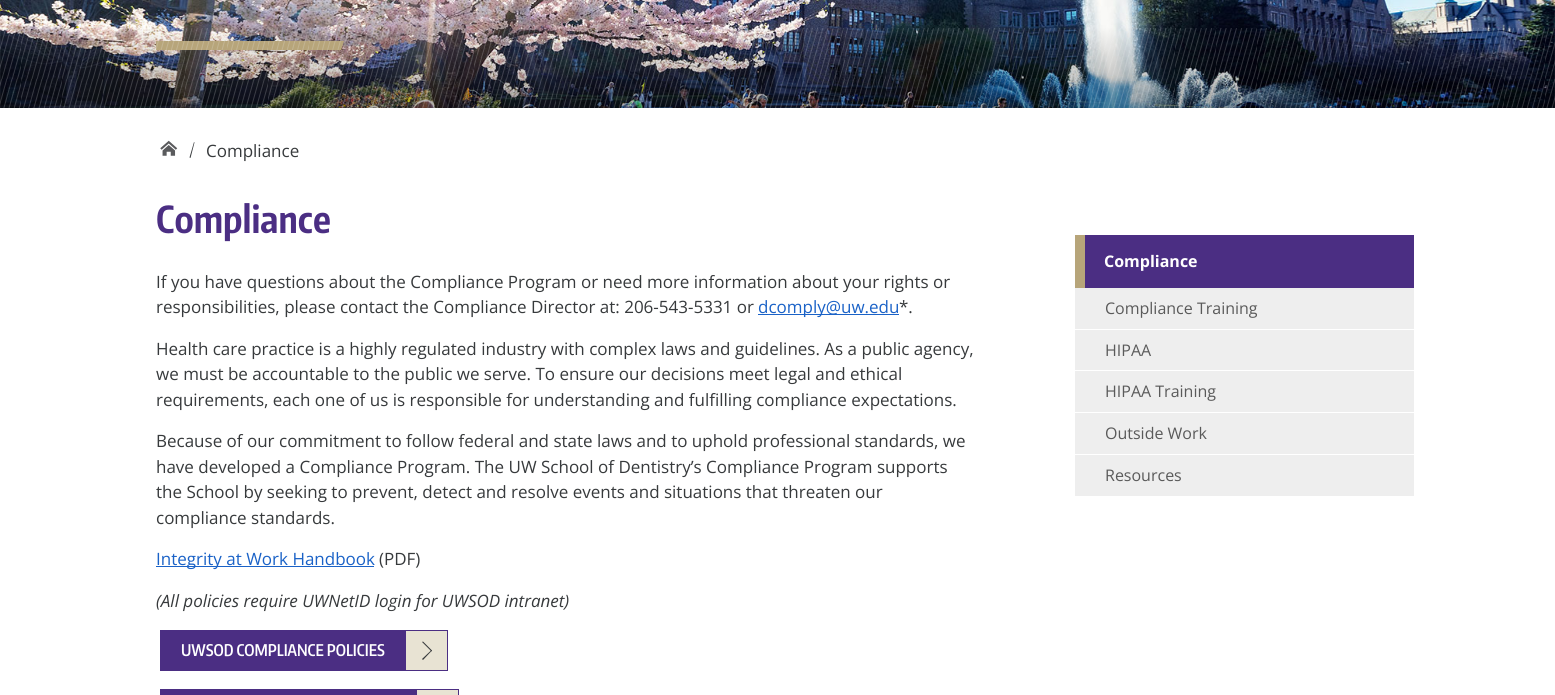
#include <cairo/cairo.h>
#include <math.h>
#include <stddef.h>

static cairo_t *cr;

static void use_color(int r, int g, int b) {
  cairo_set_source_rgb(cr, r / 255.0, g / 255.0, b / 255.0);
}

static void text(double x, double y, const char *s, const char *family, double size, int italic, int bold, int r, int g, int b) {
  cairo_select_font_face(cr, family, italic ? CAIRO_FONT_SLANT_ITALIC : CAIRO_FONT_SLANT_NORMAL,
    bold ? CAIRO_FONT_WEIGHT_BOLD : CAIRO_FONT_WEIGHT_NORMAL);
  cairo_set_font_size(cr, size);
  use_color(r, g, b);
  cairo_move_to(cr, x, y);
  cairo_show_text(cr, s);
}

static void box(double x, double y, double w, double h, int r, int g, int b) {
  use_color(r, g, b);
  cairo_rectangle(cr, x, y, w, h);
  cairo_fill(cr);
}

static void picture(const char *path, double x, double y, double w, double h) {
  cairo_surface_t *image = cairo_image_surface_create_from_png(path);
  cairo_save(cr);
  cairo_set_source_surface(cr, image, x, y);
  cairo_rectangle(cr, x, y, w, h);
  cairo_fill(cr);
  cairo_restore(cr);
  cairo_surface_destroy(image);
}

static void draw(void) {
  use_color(255, 255, 255);
  cairo_paint(cr);
  picture("img_01.png", 0, 0, 1555, 108);
  cairo_save(cr);
  cairo_rectangle(cr, 156, 41, 1244, 10);
  cairo_clip(cr);
  use_color(183, 165, 122);
  cairo_new_path(cr);
  cairo_move_to(cr, 152, 41);
  cairo_line_to(cr, 344, 41);
  cairo_line_to(cr, 341, 50);
  cairo_line_to(cr, 149, 50);
  cairo_close_path(cr);
  cairo_fill(cr);
  cairo_restore(cr);
  picture("img_02.png", 0, 28, 1555, 80);
  picture("img_03.png", 160, 140, 18, 16);
  use_color(55, 58, 60);
  cairo_new_path(cr);
  cairo_move_to(cr, 194, 142);
  cairo_line_to(cr, 194.5, 142.5);
  cairo_line_to(cr, 190.5, 158);
  cairo_line_to(cr, 189.5, 157.5);
  cairo_close_path(cr);
  cairo_fill(cr);
  box(758, 314, 141, 1, 26, 98, 199);
  box(156, 566, 218, 1, 26, 98, 199);
  box(160, 630, 245, 41, 75, 46, 131);
  use_color(232, 227, 211);
  cairo_rectangle(cr, 405.5, 630.5, 42, 40);
  cairo_fill_preserve(cr);
  use_color(75, 46, 131);
  cairo_set_line_width(cr, 1);
  cairo_stroke(cr);
  use_color(55, 58, 60);
  cairo_new_path(cr);
  cairo_move_to(cr, 422, 642);
  cairo_line_to(cr, 423, 641.5);
  cairo_line_to(cr, 432, 650.5);
  cairo_line_to(cr, 431.5, 651.5);
  cairo_close_path(cr);
  cairo_fill(cr);
  cairo_new_path(cr);
  cairo_move_to(cr, 422, 659);
  cairo_line_to(cr, 431.5, 650);
  cairo_line_to(cr, 432, 650.5);
  cairo_line_to(cr, 423, 660);
  cairo_close_path(cr);
  cairo_fill(cr);
  box(160, 689, 256, 6, 75, 46, 131);
  use_color(232, 227, 211);
  cairo_rectangle(cr, 416.5, 689.5, 42, 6);
  cairo_fill_preserve(cr);
  use_color(75, 46, 131);
  cairo_stroke(cr);
  box(1085, 235, 329, 53, 75, 46, 131);
  box(1075, 235, 10, 53, 183, 165, 122);
  box(1075, 288, 339, 41, 238, 238, 238);
  box(1075, 330, 339, 40, 238, 238, 238);
  box(1075, 371, 339, 41, 238, 238, 238);
  box(1075, 413, 339, 41, 238, 238, 238);
  box(1075, 455, 339, 41, 238, 238, 238);
  text(206, 157, "Compliance", "Open Sans", 17, 0, 0, 55, 58, 60);
  text(156, 233, "Compliance", "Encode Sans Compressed", 37, 0, 1, 75, 46, 131);
  text(156, 288, "If you have questions about the Compliance Program or need more information about your rights or", "Open Sans", 17, 0, 0, 55, 58, 60);
  text(156, 313, "responsibilities, please contact the Compliance Director at: 206-543-5331 or", "Open Sans", 17, 0, 0, 55, 58, 60);
  text(758, 313, "dcomply@uw.edu", "Open Sans", 17, 0, 0, 26, 98, 199);
  text(899, 313, "*.", "Open Sans", 17, 0, 0, 55, 58, 60);
  text(156, 355, "Health care practice is a highly regulated industry with complex laws and guidelines. As a public agency,", "Open Sans", 17, 0, 0, 55, 58, 60);
  text(156, 380, "we must be accountable to the public we serve. To ensure our decisions meet legal and ethical", "Open Sans", 17, 0, 0, 55, 58, 60);
  text(156, 406, "requirements, each one of us is responsible for understanding and fulfilling compliance expectations.", "Open Sans", 17, 0, 0, 55, 58, 60);
  text(156, 447, "Because of our commitment to follow federal and state laws and to uphold professional standards, we", "Open Sans", 17, 0, 0, 55, 58, 60);
  text(156, 473, "have developed a Compliance Program. The UW School of Dentistry’s Compliance Program supports", "Open Sans", 17, 0, 0, 55, 58, 60);
  text(156, 498, "the School by seeking to prevent, detect and resolve events and situations that threaten our", "Open Sans", 17, 0, 0, 55, 58, 60);
  text(156, 524, "compliance standards.", "Open Sans", 17, 0, 0, 55, 58, 60);
  text(156, 565, "Integrity at Work Handbook", "Open Sans", 17, 0, 0, 26, 98, 199);
  text(379, 565, "(PDF)", "Open Sans", 17, 0, 0, 55, 58, 60);
  text(156, 607, "(All policies require UWNetID login for UWSOD intranet)", "Open Sans", 17, 1, 0, 55, 58, 60);
  text(181, 656, "UWSOD COMPLIANCE POLICIES", "Encode Sans Compressed SemiBold", 16, 0, 0, 255, 255, 255);
  text(1104, 267, "Compliance", "Open Sans", 16, 0, 1, 255, 255, 255);
  text(1105, 314, "Compliance Training", "Open Sans", 16, 0, 0, 90, 90, 90);
  text(1105, 356, "HIPAA", "Open Sans", 16, 0, 0, 90, 90, 90);
  text(1105, 397, "HIPAA Training", "Open Sans", 16, 0, 0, 90, 90, 90);
  text(1105, 439, "Outside Work", "Open Sans", 16, 0, 0, 90, 90, 90);
  text(1105, 481, "Resources", "Open Sans", 16, 0, 0, 90, 90, 90);
}

int main(void) {
  cairo_surface_t *surface = cairo_image_surface_create(CAIRO_FORMAT_RGB24, 1555, 695);
  cr = cairo_create(surface);
  cairo_font_options_t *options = cairo_font_options_create();
  cairo_font_options_set_hint_metrics(options, CAIRO_HINT_METRICS_OFF);
  cairo_font_options_set_hint_style(options, CAIRO_HINT_STYLE_NONE);
  cairo_set_font_options(cr, options);
  cairo_set_miter_limit(cr, 4);
  draw();
  cairo_surface_write_to_png(surface, "out.png");
  cairo_font_options_destroy(options);
  cairo_destroy(cr);
  cairo_surface_destroy(surface);
  return 0;
}
